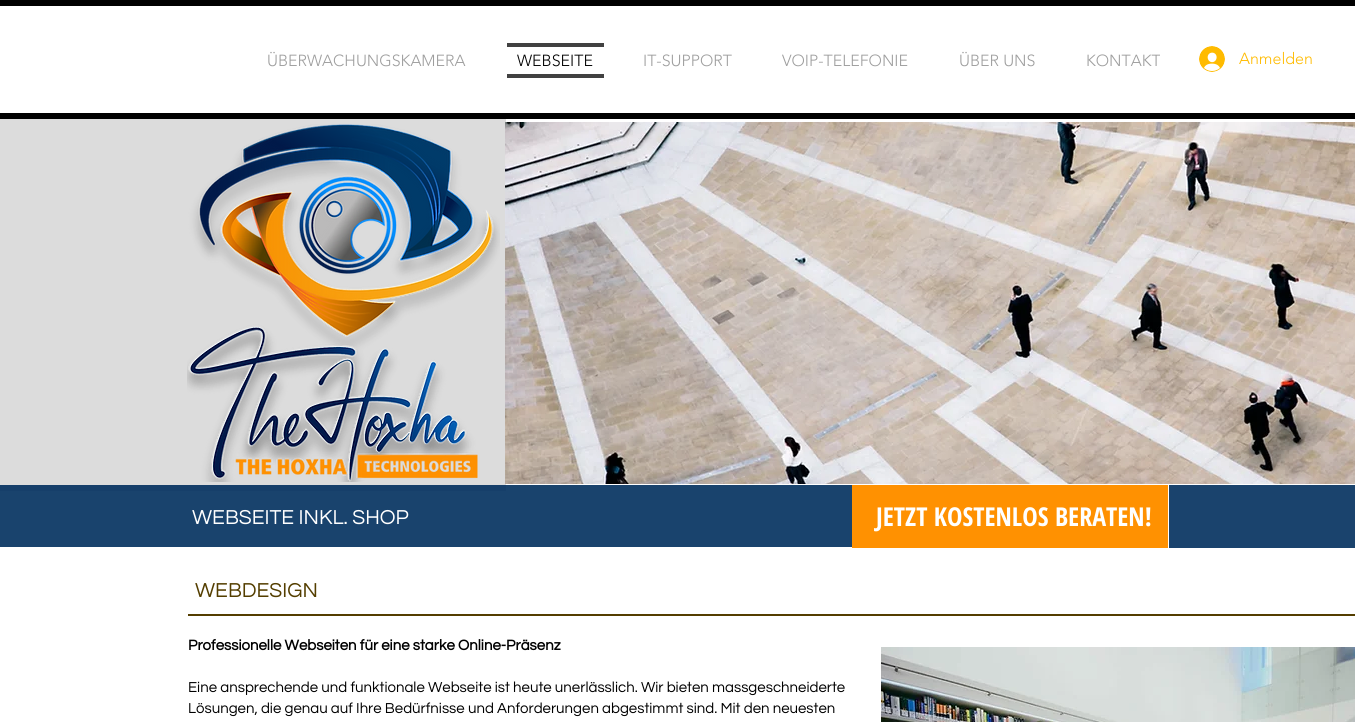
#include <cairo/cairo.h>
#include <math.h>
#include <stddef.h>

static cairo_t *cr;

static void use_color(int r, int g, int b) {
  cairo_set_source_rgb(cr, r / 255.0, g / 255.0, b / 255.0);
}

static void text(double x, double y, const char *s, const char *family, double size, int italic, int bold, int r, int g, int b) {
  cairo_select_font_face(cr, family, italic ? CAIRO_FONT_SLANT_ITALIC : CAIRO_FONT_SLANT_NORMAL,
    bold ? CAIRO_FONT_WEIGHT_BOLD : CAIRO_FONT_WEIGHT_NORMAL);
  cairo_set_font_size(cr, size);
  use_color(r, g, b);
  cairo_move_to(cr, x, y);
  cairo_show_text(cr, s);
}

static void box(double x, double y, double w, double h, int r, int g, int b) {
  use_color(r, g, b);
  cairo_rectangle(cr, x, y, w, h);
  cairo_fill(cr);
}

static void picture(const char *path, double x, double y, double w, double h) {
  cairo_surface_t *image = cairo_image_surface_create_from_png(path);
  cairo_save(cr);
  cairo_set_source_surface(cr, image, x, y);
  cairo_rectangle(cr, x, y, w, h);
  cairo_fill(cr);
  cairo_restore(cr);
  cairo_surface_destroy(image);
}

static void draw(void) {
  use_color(255, 255, 255);
  cairo_paint(cr);
  box(0, 485, 852, 62, 25, 67, 109);
  box(0, 0, 1355, 6, 0, 0, 0);
  box(0, 113, 1355, 6, 0, 0, 0);
  box(507, 43, 97, 4, 65, 65, 65);
  box(507, 74, 97, 4, 65, 65, 65);
  picture("img_01.png", 1199, 46, 26, 26);
  box(0, 119, 506, 366, 220, 220, 220);
  box(0, 485, 506, 6, 22, 63, 106);
  picture("img_02.png", 187, 124, 313, 358);
  picture("img_03.png", 505, 122, 850, 362);
  box(852, 485, 316, 63, 255, 145, 1);
  box(1169, 485, 186, 63, 26, 67, 109);
  box(188, 614, 1167, 2, 84, 62, 0);
  picture("img_04.png", 881, 647, 474, 75);
  text(267, 66, "ÜBERWACHUNGSKAMERA", "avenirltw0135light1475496 Light", 16, 0, 0, 158, 158, 158);
  text(517, 66, "WEBSEITE", "avenirltw0135light1475496 Light", 16, 0, 0, 0, 0, 0);
  text(643, 66, "IT-SUPPORT", "avenirltw0135light1475496 Light", 16, 0, 0, 158, 158, 158);
  text(782, 66, "VOIP-TELEFONIE", "avenirltw0135light1475496 Light", 16, 0, 0, 158, 158, 158);
  text(959, 66, "ÜBER UNS", "avenirltw0135light1475496 Light", 16, 0, 0, 158, 158, 158);
  text(1086, 66, "KONTAKT", "avenirltw0135light1475496 Light", 16, 0, 0, 158, 158, 158);
  text(1239, 64, "Anmelden", "avenirltw0135light1475496 Light", 16, 0, 0, 255, 187, 0);
  text(192, 524, "WEBSEITE INKL. SHOP", "Questrial", 21, 0, 0, 255, 255, 255);
  text(876, 526, "JETZT KOSTENLOS BERATEN!", "Open Sans Condensed", 26, 0, 1, 255, 255, 255);
  text(195, 597, "WEBDESIGN", "Questrial", 21, 0, 0, 84, 62, 0);
  text(188, 650, "Professionelle Webseiten für eine starke Online-Präsenz", "Questrial", 15, 0, 1, 0, 0, 0);
  text(188, 692, "Eine ansprechende und funktionale Webseite ist heute unerlässlich. Wir bieten massgeschneiderte", "Questrial", 15, 0, 0, 0, 0, 0);
  text(188, 713, "Lösungen, die genau auf Ihre Bedürfnisse und Anforderungen abgestimmt sind. Mit den neuesten", "Questrial", 15, 0, 0, 0, 0, 0);
}

int main(void) {
  cairo_surface_t *surface = cairo_image_surface_create(CAIRO_FORMAT_RGB24, 1355, 722);
  cr = cairo_create(surface);
  cairo_font_options_t *options = cairo_font_options_create();
  cairo_font_options_set_hint_metrics(options, CAIRO_HINT_METRICS_OFF);
  cairo_font_options_set_hint_style(options, CAIRO_HINT_STYLE_NONE);
  cairo_set_font_options(cr, options);
  cairo_set_miter_limit(cr, 4);
  draw();
  cairo_surface_write_to_png(surface, "out.png");
  cairo_font_options_destroy(options);
  cairo_destroy(cr);
  cairo_surface_destroy(surface);
  return 0;
}
